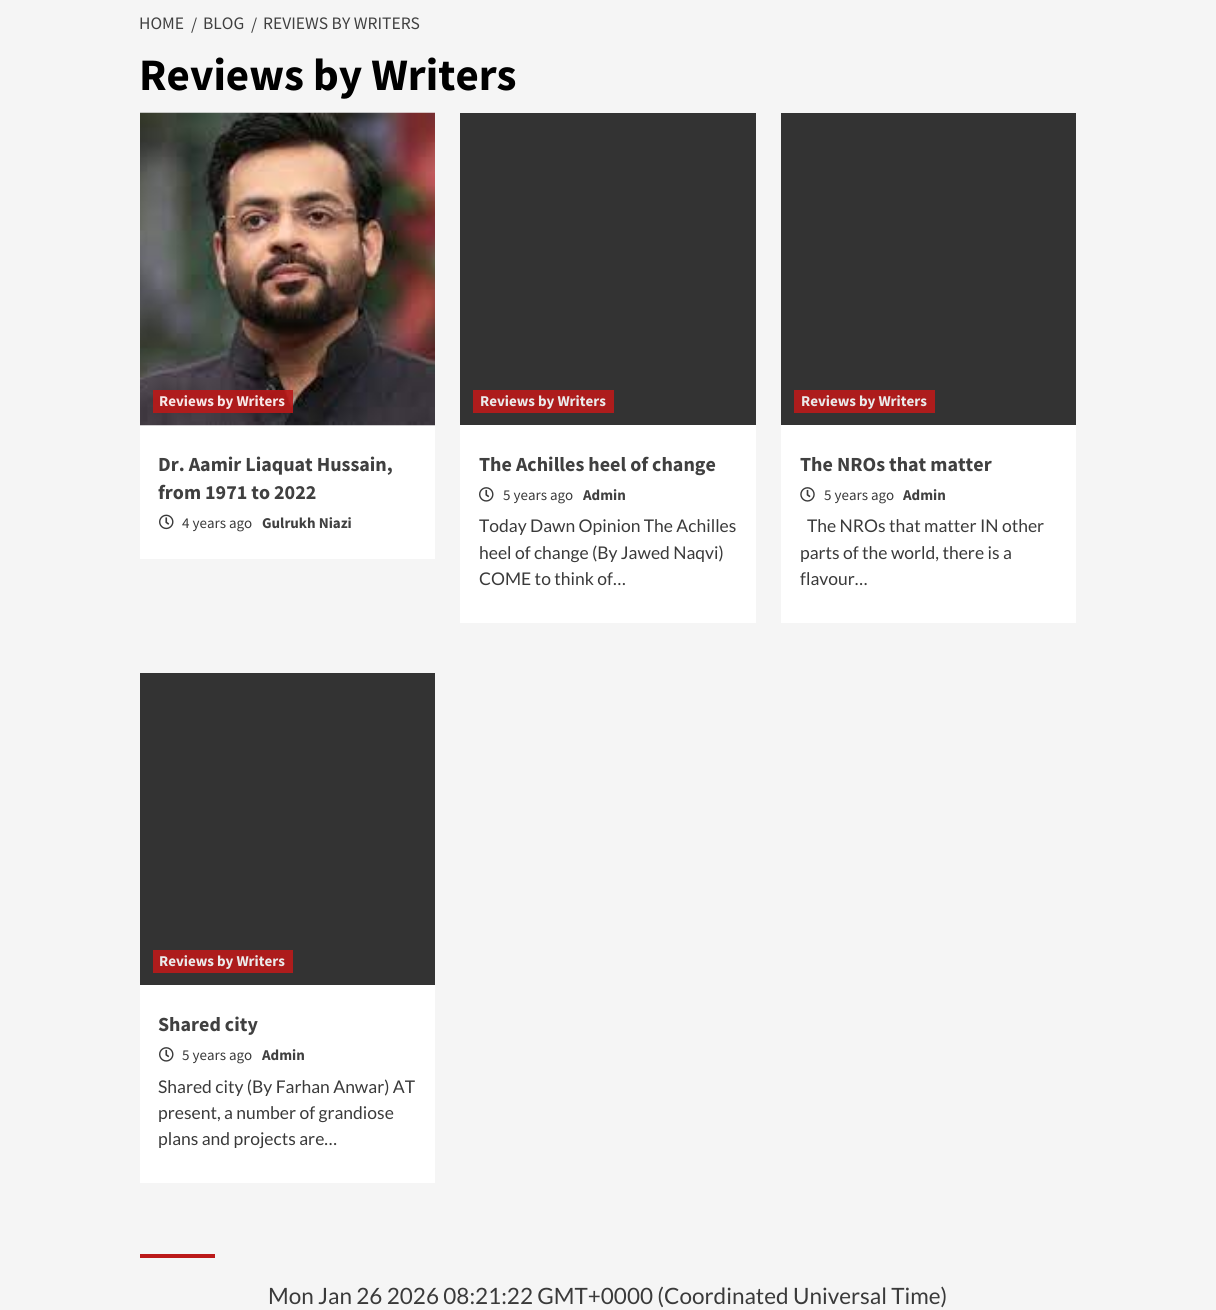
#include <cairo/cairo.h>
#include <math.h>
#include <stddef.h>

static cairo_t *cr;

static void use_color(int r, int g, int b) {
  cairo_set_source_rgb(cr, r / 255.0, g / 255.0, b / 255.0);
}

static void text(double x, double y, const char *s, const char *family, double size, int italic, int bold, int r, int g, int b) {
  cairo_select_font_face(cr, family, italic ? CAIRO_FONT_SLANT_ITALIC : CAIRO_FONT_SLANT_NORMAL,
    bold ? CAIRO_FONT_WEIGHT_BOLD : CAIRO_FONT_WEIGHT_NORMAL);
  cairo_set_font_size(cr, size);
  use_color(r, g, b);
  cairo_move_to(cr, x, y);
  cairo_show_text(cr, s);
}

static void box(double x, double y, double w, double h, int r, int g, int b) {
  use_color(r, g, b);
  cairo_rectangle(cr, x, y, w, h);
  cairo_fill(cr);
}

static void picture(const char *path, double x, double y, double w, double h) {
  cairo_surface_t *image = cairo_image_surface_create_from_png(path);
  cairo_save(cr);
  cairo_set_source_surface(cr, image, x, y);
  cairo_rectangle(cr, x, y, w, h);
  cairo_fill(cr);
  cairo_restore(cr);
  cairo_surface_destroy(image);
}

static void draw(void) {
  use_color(245, 245, 245);
  cairo_paint(cr);
  box(140, 425, 295, 134, 255, 255, 255);
  picture("img_01.png", 140, 112, 295, 314);
  cairo_set_source_rgba(cr, 0.733, 0.098, 0.098, 0.9);
  cairo_rectangle(cr, 153, 390, 140, 23);
  cairo_fill(cr);
  picture("img_02.png", 159, 514, 15, 16);
  box(460, 425, 296, 198, 255, 255, 255);
  box(460, 113, 296, 312, 51, 51, 51);
  box(473, 390, 141, 23, 173, 28, 28);
  picture("img_03.png", 479, 487, 15, 15);
  box(781, 425, 295, 198, 255, 255, 255);
  box(781, 113, 295, 312, 51, 51, 51);
  box(794, 390, 141, 23, 173, 28, 28);
  picture("img_04.png", 800, 487, 15, 15);
  box(140, 985, 295, 198, 255, 255, 255);
  box(140, 673, 295, 312, 51, 51, 51);
  box(153, 950, 140, 23, 173, 28, 28);
  picture("img_03.png", 159, 1047, 15, 15);
  box(140, 1254, 75, 4, 187, 25, 25);
  text(139, 29, "HOME", "Source Sans Pro", 17.5, 0, 0, 64, 64, 64);
  text(191, 30, "/", "Source Sans Pro", 17.5, 0, 0, 64, 64, 64);
  text(203, 29, "BLOG", "Source Sans Pro", 17.5, 0, 0, 64, 64, 64);
  text(251, 30, "/", "Source Sans Pro", 17.5, 0, 0, 64, 64, 64);
  text(263, 29, "REVIEWS BY WRITERS", "Source Sans Pro", 17.5, 0, 0, 64, 64, 64);
  text(139, 90, "Reviews by Writers", "Source Sans Pro", 45, 0, 1, 0, 0, 0);
  text(159, 406, "Reviews by Writers", "Source Sans Pro", 15, 0, 1, 247, 232, 232);
  text(158, 471, "Dr. Aamir Liaquat Hussain,", "Source Sans Pro", 20, 0, 1, 64, 64, 64);
  text(158, 499, "from 1971 to 2022", "Source Sans Pro", 20, 0, 1, 64, 64, 64);
  text(182, 528, "4 years ago", "Source Sans Pro", 15, 0, 0, 58, 58, 58);
  text(262, 528, "Gulrukh Niazi", "Source Sans Pro", 15, 0, 1, 64, 64, 64);
  text(480, 406, "Reviews by Writers", "Source Sans Pro", 15, 0, 1, 235, 235, 235);
  text(479, 471, "The Achilles heel of change", "Source Sans Pro", 20, 0, 1, 64, 64, 64);
  text(503, 500, "5 years ago", "Source Sans Pro", 15, 0, 0, 58, 58, 58);
  text(583, 500, "Admin", "Source Sans Pro", 15, 0, 1, 64, 64, 64);
  text(479, 532, "Today Dawn Opinion The Achilles", "Lato", 17.5, 0, 0, 58, 58, 58);
  text(479, 559, "heel of change (By Jawed Naqvi)", "Lato", 17.5, 0, 0, 58, 58, 58);
  text(479, 585, "COME to think of…", "Lato", 17.5, 0, 0, 58, 58, 58);
  text(801, 406, "Reviews by Writers", "Source Sans Pro", 15, 0, 1, 235, 235, 235);
  text(800, 471, "The NROs that matter", "Source Sans Pro", 20, 0, 1, 64, 64, 64);
  text(824, 500, "5 years ago", "Source Sans Pro", 15, 0, 0, 58, 58, 58);
  text(903, 500, "Admin", "Source Sans Pro", 15, 0, 1, 64, 64, 64);
  text(807, 532, "The NROs that matter IN other", "Lato", 17.5, 0, 0, 58, 58, 58);
  text(800, 559, "parts of the world, there is a", "Lato", 17.5, 0, 0, 58, 58, 58);
  text(800, 585, "flavour…", "Lato", 17.5, 0, 0, 58, 58, 58);
  text(159, 966, "Reviews by Writers", "Source Sans Pro", 15, 0, 1, 235, 235, 235);
  text(158, 1031, "Shared city", "Source Sans Pro", 20, 0, 1, 64, 64, 64);
  text(182, 1060, "5 years ago", "Source Sans Pro", 15, 0, 0, 58, 58, 58);
  text(262, 1060, "Admin", "Source Sans Pro", 15, 0, 1, 64, 64, 64);
  text(158, 1093, "Shared city (By Farhan Anwar) AT", "Lato", 17.5, 0, 0, 58, 58, 58);
  text(158, 1119, "present, a number of grandiose", "Lato", 17.5, 0, 0, 58, 58, 58);
  text(158, 1145, "plans and projects are…", "Lato", 17.5, 0, 0, 58, 58, 58);
  text(268, 1304, "Mon Jan 26 2026 08:21:22 GMT+0000 (Coordinated Universal Time)", "Lato", 22.5, 0, 0, 58, 58, 58);
}

int main(void) {
  cairo_surface_t *surface = cairo_image_surface_create(CAIRO_FORMAT_RGB24, 1216, 1310);
  cr = cairo_create(surface);
  cairo_font_options_t *options = cairo_font_options_create();
  cairo_font_options_set_hint_metrics(options, CAIRO_HINT_METRICS_OFF);
  cairo_font_options_set_hint_style(options, CAIRO_HINT_STYLE_NONE);
  cairo_set_font_options(cr, options);
  cairo_set_miter_limit(cr, 4);
  draw();
  cairo_surface_write_to_png(surface, "out.png");
  cairo_font_options_destroy(options);
  cairo_destroy(cr);
  cairo_surface_destroy(surface);
  return 0;
}
